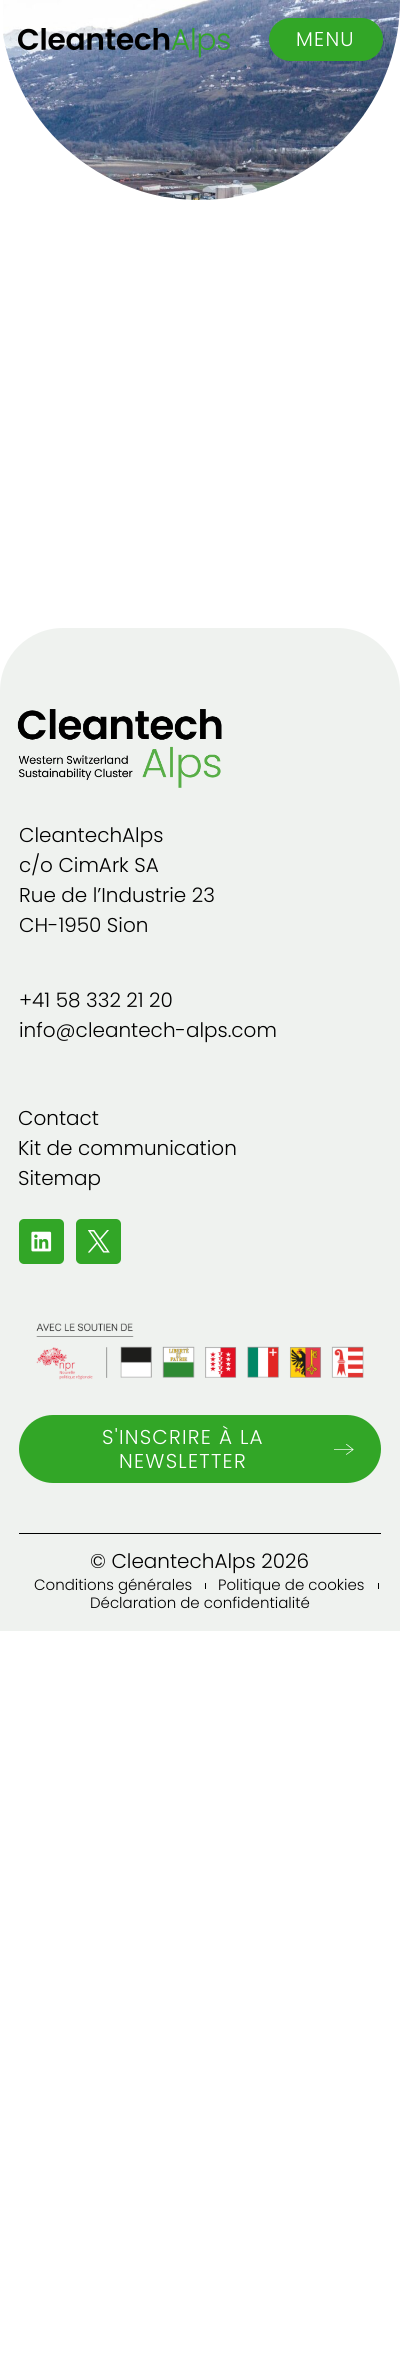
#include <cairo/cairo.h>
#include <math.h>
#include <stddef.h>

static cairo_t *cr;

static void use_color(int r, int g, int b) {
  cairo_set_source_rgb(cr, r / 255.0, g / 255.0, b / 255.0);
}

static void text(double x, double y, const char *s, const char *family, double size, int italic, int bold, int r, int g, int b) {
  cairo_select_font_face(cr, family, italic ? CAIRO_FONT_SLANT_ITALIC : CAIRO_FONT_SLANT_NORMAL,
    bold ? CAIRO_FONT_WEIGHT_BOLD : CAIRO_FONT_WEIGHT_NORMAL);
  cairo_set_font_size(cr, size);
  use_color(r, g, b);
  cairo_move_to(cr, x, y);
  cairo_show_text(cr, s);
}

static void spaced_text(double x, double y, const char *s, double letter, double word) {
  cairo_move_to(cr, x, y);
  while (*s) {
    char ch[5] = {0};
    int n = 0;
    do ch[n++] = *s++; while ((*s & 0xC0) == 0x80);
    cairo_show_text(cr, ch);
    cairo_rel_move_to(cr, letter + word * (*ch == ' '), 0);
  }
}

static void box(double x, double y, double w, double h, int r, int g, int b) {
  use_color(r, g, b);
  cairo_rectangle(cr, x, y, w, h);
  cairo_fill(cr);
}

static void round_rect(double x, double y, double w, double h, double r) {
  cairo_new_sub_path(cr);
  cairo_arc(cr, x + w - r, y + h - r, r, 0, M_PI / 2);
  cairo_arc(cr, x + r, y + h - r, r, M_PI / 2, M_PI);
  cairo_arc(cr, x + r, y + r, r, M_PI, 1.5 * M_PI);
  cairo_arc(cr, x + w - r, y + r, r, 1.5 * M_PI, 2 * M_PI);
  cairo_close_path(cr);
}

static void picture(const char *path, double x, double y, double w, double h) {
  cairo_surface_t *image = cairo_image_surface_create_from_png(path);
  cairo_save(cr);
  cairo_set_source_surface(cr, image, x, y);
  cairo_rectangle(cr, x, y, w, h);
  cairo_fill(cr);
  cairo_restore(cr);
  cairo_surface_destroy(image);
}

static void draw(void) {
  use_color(255, 255, 255);
  cairo_paint(cr);
  picture("img_01.png", 3, 0, 397, 200);
  picture("img_02.png", 18, 28, 212, 30);
  use_color(50, 166, 39);
  round_rect(269, 18, 114, 43, 21.5);
  cairo_fill(cr);
  use_color(239, 242, 239);
  cairo_new_path(cr);
  cairo_move_to(cr, 63, 628);
  cairo_line_to(cr, 337, 628);
  cairo_curve_to(cr, 372, 628, 400, 656, 400, 691);
  cairo_line_to(cr, 400, 1631);
  cairo_line_to(cr, 0, 1631);
  cairo_line_to(cr, 0, 691);
  cairo_curve_to(cr, 0, 656, 28, 628, 63, 628);
  cairo_close_path(cr);
  cairo_fill(cr);
  picture("img_03.png", 17, 709, 205, 79);
  use_color(50, 166, 39);
  round_rect(19, 1219, 45, 45, 5);
  cairo_fill(cr);
  picture("img_04.png", 31, 1231, 21, 21);
  round_rect(76, 1219, 45, 45, 5);
  cairo_fill(cr);
  picture("img_05.png", 88, 1230, 22, 23);
  picture("img_06.png", 36, 1323, 328, 57);
  round_rect(19, 1415, 362, 68, 34);
  cairo_fill(cr);
  picture("img_07.png", 334, 1444, 20, 11);
  box(19, 1533, 362, 1, 0, 0, 0);
  box(205, 1583, 1, 6, 0, 0, 0);
  box(378, 1583, 1, 6, 0, 0, 0);
  cairo_select_font_face(cr, "Poppins Light", CAIRO_FONT_SLANT_NORMAL, CAIRO_FONT_WEIGHT_NORMAL);
  cairo_set_font_size(cr, 20);
  use_color(255, 255, 255);
  spaced_text(296, 46, "MENU", 1.25, 0);
  text(19, 842, "CleantechAlps", "Poppins Light", 20, 0, 0, 0, 0, 0);
  text(19, 872, "c/o CimArk SA", "Poppins Light", 20, 0, 0, 0, 0, 0);
  text(19, 902, "Rue de l’Industrie 23", "Poppins Light", 20, 0, 0, 0, 0, 0);
  text(19, 932, "CH-1950 Sion", "Poppins Light", 20, 0, 0, 0, 0, 0);
  text(19, 1007, "+41 58 332 21 20", "Poppins Light", 20, 0, 0, 0, 0, 0);
  text(19, 1037, "info@cleantech-alps.com", "Poppins Light", 20, 0, 0, 0, 0, 0);
  text(18, 1125, "Contact", "Poppins Light", 20, 0, 0, 0, 0, 0);
  text(18, 1155, "Kit de communication", "Poppins Light", 20, 0, 0, 0, 0, 0);
  text(18, 1185, "Sitemap", "Poppins Light", 20, 0, 0, 0, 0, 0);
  use_color(255, 255, 255);
  spaced_text(102, 1444, "S'INSCRIRE À LA", 1.25, 0);
  spaced_text(119, 1468, "NEWSLETTER", 1.25, 0);
  text(90, 1568, "© CleantechAlps 2026", "Poppins Light", 20, 0, 0, 0, 0, 0);
  text(34, 1590, "Conditions générales", "Poppins Light", 15, 0, 0, 0, 0, 0);
  text(218, 1590, "Politique de cookies", "Poppins Light", 15, 0, 0, 0, 0, 0);
  text(90, 1608, "Déclaration de confidentialité", "Poppins Light", 15, 0, 0, 0, 0, 0);
}

int main(void) {
  cairo_surface_t *surface = cairo_image_surface_create(CAIRO_FORMAT_RGB24, 400, 2372);
  cr = cairo_create(surface);
  cairo_font_options_t *options = cairo_font_options_create();
  cairo_font_options_set_hint_metrics(options, CAIRO_HINT_METRICS_OFF);
  cairo_font_options_set_hint_style(options, CAIRO_HINT_STYLE_NONE);
  cairo_set_font_options(cr, options);
  cairo_set_miter_limit(cr, 4);
  draw();
  cairo_surface_write_to_png(surface, "out.png");
  cairo_font_options_destroy(options);
  cairo_destroy(cr);
  cairo_surface_destroy(surface);
  return 0;
}
